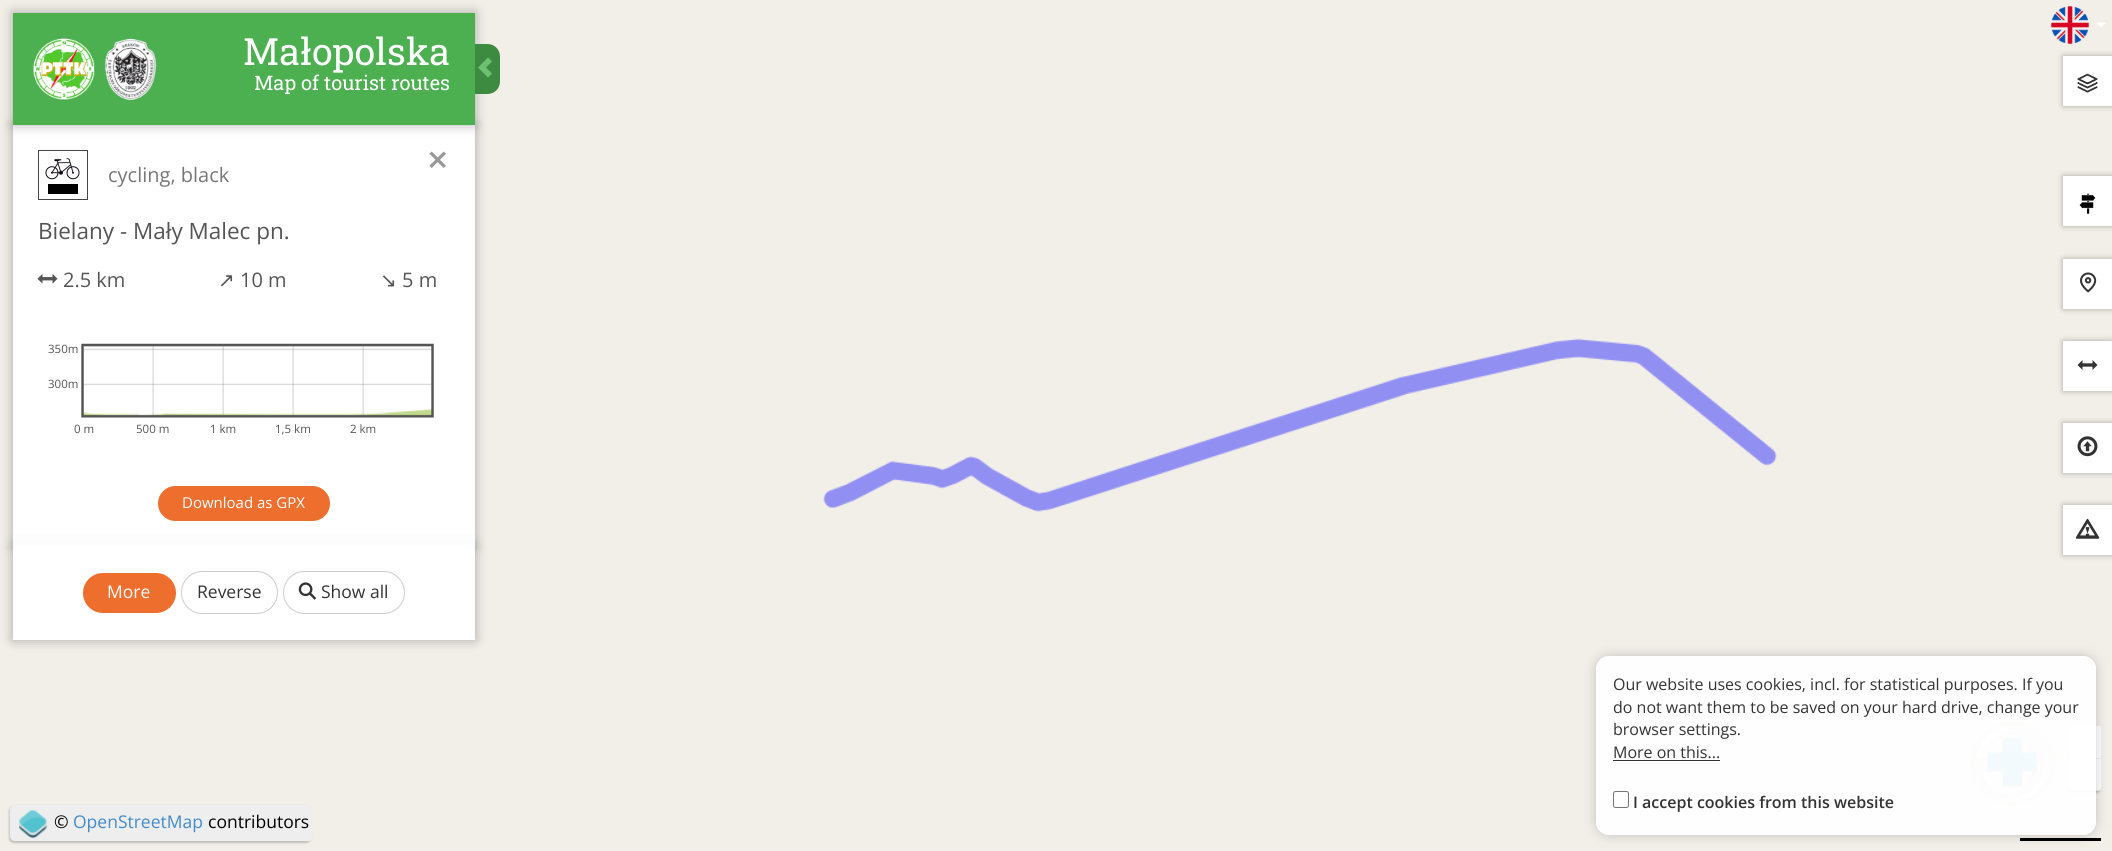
#include <cairo/cairo.h>
#include <math.h>
#include <stddef.h>

static cairo_t *cr;

static void use_color(int r, int g, int b) {
  cairo_set_source_rgb(cr, r / 255.0, g / 255.0, b / 255.0);
}

static void text(double x, double y, const char *s, const char *family, double size, int italic, int bold, int r, int g, int b) {
  cairo_select_font_face(cr, family, italic ? CAIRO_FONT_SLANT_ITALIC : CAIRO_FONT_SLANT_NORMAL,
    bold ? CAIRO_FONT_WEIGHT_BOLD : CAIRO_FONT_WEIGHT_NORMAL);
  cairo_set_font_size(cr, size);
  use_color(r, g, b);
  cairo_move_to(cr, x, y);
  cairo_show_text(cr, s);
}

static void box(double x, double y, double w, double h, int r, int g, int b) {
  use_color(r, g, b);
  cairo_rectangle(cr, x, y, w, h);
  cairo_fill(cr);
}

static void round_rect(double x, double y, double w, double h, double r) {
  cairo_new_sub_path(cr);
  cairo_arc(cr, x + w - r, y + h - r, r, 0, M_PI / 2);
  cairo_arc(cr, x + r, y + h - r, r, M_PI / 2, M_PI);
  cairo_arc(cr, x + r, y + r, r, M_PI, 1.5 * M_PI);
  cairo_arc(cr, x + w - r, y + r, r, 1.5 * M_PI, 2 * M_PI);
  cairo_close_path(cr);
}

static void shadow(double x, double y, double w, double h, double r, double blur, double alpha) {
  cairo_push_group_with_content(cr, CAIRO_CONTENT_ALPHA);
  cairo_set_operator(cr, CAIRO_OPERATOR_SOURCE);
  for (int i = 15; i >= -15 && fmin(w, h) + blur * i / 3 > 0; i -= 2) {
    double e = blur * i / 6;
    cairo_set_source_rgba(cr, 0, 0, 0, alpha * erfc((i - 1) / 8.5) / 2);
    round_rect(x - e, y - e, w + 2 * e, h + 2 * e, fmax(0, fmin(r + e + blur * .6, fmin(w, h) / 2 + e)));
    cairo_fill(cr);
  }
  cairo_pattern_t *soft = cairo_pop_group(cr);
  cairo_mask(cr, soft);
  cairo_pattern_destroy(soft);
}

static void picture(const char *path, double x, double y, double w, double h) {
  cairo_surface_t *image = cairo_image_surface_create_from_png(path);
  cairo_save(cr);
  cairo_set_source_surface(cr, image, x, y);
  cairo_rectangle(cr, x, y, w, h);
  cairo_fill(cr);
  cairo_restore(cr);
  cairo_surface_destroy(image);
}

static void draw(void) {
  cairo_pattern_t *gradient;
  use_color(242, 239, 233);
  cairo_paint(cr);
  picture("img_01.png", 2051, 6, 38, 38);
  use_color(255, 255, 255);
  cairo_new_path(cr);
  cairo_move_to(cr, 2096, 22.5);
  cairo_line_to(cr, 2106, 22.5);
  cairo_line_to(cr, 2101, 27.5);
  cairo_close_path(cr);
  cairo_fill(cr);
  use_color(0, 0, 0);
  shadow(13, 125, 462, 421, 0, 6, 0.3);
  box(13, 125, 462, 421, 255, 255, 255);
  use_color(0, 0, 0);
  shadow(13, 13, 462, 112, 0, 6, 0.3);
  box(13, 13, 462, 112, 76, 175, 80);
  picture("img_02.png", 33, 38, 124, 62);
  use_color(61, 139, 64);
  cairo_new_path(cr);
  cairo_move_to(cr, 475, 44);
  cairo_line_to(cr, 487.5, 44);
  cairo_curve_to(cr, 494.5, 44, 500, 49.5, 500, 56.5);
  cairo_line_to(cr, 500, 81.5);
  cairo_curve_to(cr, 500, 88.5, 494.5, 94, 487.5, 94);
  cairo_line_to(cr, 475, 94);
  cairo_close_path(cr);
  cairo_fill(cr);
  use_color(110, 192, 113);
  cairo_new_path(cr);
  cairo_move_to(cr, 478, 67.5);
  cairo_line_to(cr, 488, 77.5);
  cairo_line_to(cr, 492, 73.5);
  cairo_line_to(cr, 486, 67.5);
  cairo_line_to(cr, 492, 61.5);
  cairo_line_to(cr, 488, 57.5);
  cairo_close_path(cr);
  cairo_fill(cr);
  picture("img_03.png", 45, 158, 35, 22);
  cairo_rectangle(cr, 38.5, 150.5, 49, 49);
  use_color(68, 68, 68);
  cairo_set_line_width(cr, 1);
  cairo_stroke(cr);
  box(48, 184, 30, 10, 0, 0, 0);
  picture("img_04.png", 37, 274, 21, 10);
  picture("img_05.png", 81, 343, 353, 75);
  use_color(238, 110, 45);
  round_rect(158, 486, 172, 35, 17.5);
  cairo_fill(cr);
  use_color(0, 0, 0);
  shadow(13, 546, 462, 94, 0, 6, 0.3);
  gradient = cairo_pattern_create_linear(244, 521, 244, 546);
  cairo_pattern_add_color_stop_rgba(gradient, 0, 1, 1, 1, 0);
  cairo_pattern_add_color_stop_rgba(gradient, 1, 1, 1, 1, 1);
  cairo_set_source(cr, gradient);
  cairo_pattern_destroy(gradient);
  cairo_rectangle(cr, 13, 536, 462, 10);
  cairo_fill(cr);
  box(13, 546, 462, 94, 255, 255, 255);
  use_color(238, 110, 45);
  round_rect(83, 573, 93, 40, 20);
  cairo_fill(cr);
  round_rect(181.5, 571.5, 96, 42, 21);
  use_color(204, 204, 204);
  cairo_stroke(cr);
  round_rect(283.5, 571.5, 121, 42, 21);
  cairo_stroke(cr);
  picture("img_06.png", 298, 582, 19, 18);
  use_color(0, 0, 0);
  shadow(2063, 56, 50, 50, 0, 3, 0.3);
  box(2063, 56, 49, 50, 255, 255, 255);
  picture("img_07.png", 2077, 73, 21, 20);
  use_color(0, 0, 0);
  shadow(2063, 176, 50, 50, 0, 3, 0.3);
  box(2063, 176, 49, 50, 255, 255, 255);
  picture("img_08.png", 2079, 193, 17, 21);
  use_color(0, 0, 0);
  shadow(2063, 259, 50, 50, 0, 3, 0.3);
  box(2063, 259, 49, 50, 255, 255, 255);
  picture("img_09.png", 2080, 272, 17, 21);
  use_color(0, 0, 0);
  shadow(2063, 341, 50, 50, 0, 3, 0.3);
  box(2063, 341, 49, 50, 255, 255, 255);
  picture("img_10.png", 2077, 360, 21, 10);
  use_color(0, 0, 0);
  shadow(2063, 423, 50, 50, 0, 3, 0.3);
  box(2063, 423, 49, 50, 255, 255, 255);
  picture("img_11.png", 2077, 436, 21, 21);
  use_color(0, 0, 0);
  shadow(2063, 505, 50, 50, 0, 3, 0.3);
  box(2063, 505, 49, 50, 255, 255, 255);
  picture("img_12.png", 2075, 518, 25, 21);
  use_color(0, 0, 0);
  shadow(1975, 726, 75, 75, 37.5, 6, 0.3);
  picture("img_13.png", 1975, 726, 75, 75);
  shadow(2068, 726, 33, 67, 5, 1, 0.2);
  use_color(238, 238, 238);
  round_rect(2069, 725, 34, 66, 5);
  cairo_fill(cr);
  use_color(255, 255, 255);
  cairo_new_path(cr);
  cairo_move_to(cr, 2072.5, 726);
  cairo_line_to(cr, 2098.5, 726);
  cairo_curve_to(cr, 2100, 726, 2101, 727, 2101, 728.5);
  cairo_line_to(cr, 2101, 758);
  cairo_line_to(cr, 2070, 758);
  cairo_line_to(cr, 2070, 728.5);
  cairo_curve_to(cr, 2070, 727, 2071, 726, 2072.5, 726);
  cairo_close_path(cr);
  cairo_fill(cr);
  cairo_new_path(cr);
  cairo_move_to(cr, 2070, 759);
  cairo_line_to(cr, 2101, 759);
  cairo_line_to(cr, 2101, 787.5);
  cairo_curve_to(cr, 2101, 789, 2100, 790, 2098.5, 790);
  cairo_line_to(cr, 2072.5, 790);
  cairo_curve_to(cr, 2071, 790, 2070, 789, 2070, 787.5);
  cairo_close_path(cr);
  cairo_fill(cr);
  box(2020, 838, 81, 3, 0, 0, 0);
  cairo_save(cr);
  cairo_set_fill_rule(cr, CAIRO_FILL_RULE_EVEN_ODD);
  cairo_new_path(cr);
  cairo_move_to(cr, 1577, 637);
  cairo_line_to(cr, 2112, 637);
  cairo_line_to(cr, 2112, 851);
  cairo_line_to(cr, 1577, 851);
  cairo_close_path(cr);
  cairo_move_to(cr, 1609, 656);
  cairo_line_to(cr, 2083, 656);
  cairo_curve_to(cr, 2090, 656, 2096, 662, 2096, 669);
  cairo_line_to(cr, 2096, 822);
  cairo_curve_to(cr, 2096, 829, 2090, 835, 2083, 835);
  cairo_line_to(cr, 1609, 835);
  cairo_curve_to(cr, 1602, 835, 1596, 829, 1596, 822);
  cairo_line_to(cr, 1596, 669);
  cairo_curve_to(cr, 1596, 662, 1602, 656, 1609, 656);
  cairo_close_path(cr);
  cairo_clip(cr);
  use_color(0, 0, 0);
  shadow(1596, 656, 500, 179, 13, 6, 0.2);
  cairo_restore(cr);
  cairo_set_source_rgba(cr, 1, 1, 1, 0.95);
  round_rect(1596, 656, 500, 179, 13);
  cairo_fill(cr);
  box(1613, 760, 107, 1, 51, 51, 51);
  round_rect(1613.5, 791.5, 15, 16, 2);
  use_color(118, 118, 118);
  cairo_stroke(cr);
  picture("img_14.png", 823, 338, 954, 174);
  use_color(0, 0, 0);
  shadow(9, 806, 302, 37, 5, 1, 0.2);
  use_color(238, 238, 238);
  round_rect(10, 805, 303, 36, 5);
  cairo_fill(cr);
  picture("img_15.png", 19, 809, 29, 30);
  text(243, 65, "Małopolska", "Roboto Slab", 37.5, 0, 0, 255, 255, 255);
  text(254, 90, "Map of tourist routes", "Roboto Slab", 20, 0, 0, 255, 255, 255);
  text(427, 173, "×", "Open Sans SemiBold", 37.5, 0, 0, 153, 153, 153);
  text(108, 182, "cycling, black", "Open Sans", 20, 0, 0, 119, 119, 119);
  text(38, 239, "Bielany - Mały Malec pn.", "Open Sans", 22.5, 0, 0, 85, 85, 85);
  text(63, 287, "2.5 km", "Open Sans", 20, 0, 0, 85, 85, 85);
  text(218, 287, "↗", "DejaVu Sans", 20, 0, 0, 85, 85, 85);
  text(240, 287, "10 m", "Open Sans", 20, 0, 0, 85, 85, 85);
  text(380, 287, "↘", "DejaVu Sans", 20, 0, 0, 85, 85, 85);
  text(402, 287, "5 m", "Open Sans", 20, 0, 0, 85, 85, 85);
  text(48, 353, "350m", "Open Sans", 11.5, 0, 0, 85, 85, 85);
  text(48, 388, "300m", "Open Sans", 11.5, 0, 0, 85, 85, 85);
  text(74, 433, "0 m", "Open Sans", 11.5, 0, 0, 85, 85, 85);
  text(136, 433, "500 m", "Open Sans", 11.5, 0, 0, 85, 85, 85);
  text(210, 433, "1 km", "Open Sans", 11.5, 0, 0, 85, 85, 85);
  text(275, 433, "1,5 km", "Open Sans", 11.5, 0, 0, 85, 85, 85);
  text(350, 433, "2 km", "Open Sans", 11.5, 0, 0, 85, 85, 85);
  text(182, 508, "Download as GPX", "Open Sans", 15, 0, 0, 255, 255, 255);
  text(107, 598, "More", "Open Sans", 17.5, 0, 0, 255, 255, 255);
  text(197, 598, "Reverse", "Open Sans", 17.5, 0, 0, 51, 51, 51);
  text(321, 598, "Show all", "Open Sans", 17.5, 0, 0, 51, 51, 51);
  text(1613, 690, "Our website uses cookies, incl. for statistical purposes. If you", "Open Sans", 16, 0, 0, 51, 51, 51);
  text(1613, 713, "do not want them to be saved on your hard drive, change your", "Open Sans", 16, 0, 0, 51, 51, 51);
  text(1613, 735, "browser settings.", "Open Sans", 16, 0, 0, 51, 51, 51);
  text(1613, 758, "More on this...", "Open Sans", 16, 0, 0, 51, 51, 51);
  text(1633, 808, "I accept cookies from this website", "Open Sans SemiBold", 16, 0, 0, 51, 51, 51);
  text(54, 828, "©", "Open Sans", 17.5, 0, 0, 0, 0, 0);
  text(73, 828, "OpenStreetMap", "Open Sans", 17.5, 0, 0, 66, 139, 202);
  text(208, 828, "contributors", "Open Sans", 17.5, 0, 0, 0, 0, 0);
}

int main(void) {
  cairo_surface_t *surface = cairo_image_surface_create(CAIRO_FORMAT_RGB24, 2112, 851);
  cr = cairo_create(surface);
  cairo_font_options_t *options = cairo_font_options_create();
  cairo_font_options_set_hint_metrics(options, CAIRO_HINT_METRICS_OFF);
  cairo_font_options_set_hint_style(options, CAIRO_HINT_STYLE_NONE);
  cairo_set_font_options(cr, options);
  cairo_set_miter_limit(cr, 4);
  draw();
  cairo_surface_write_to_png(surface, "out.png");
  cairo_font_options_destroy(options);
  cairo_destroy(cr);
  cairo_surface_destroy(surface);
  return 0;
}
